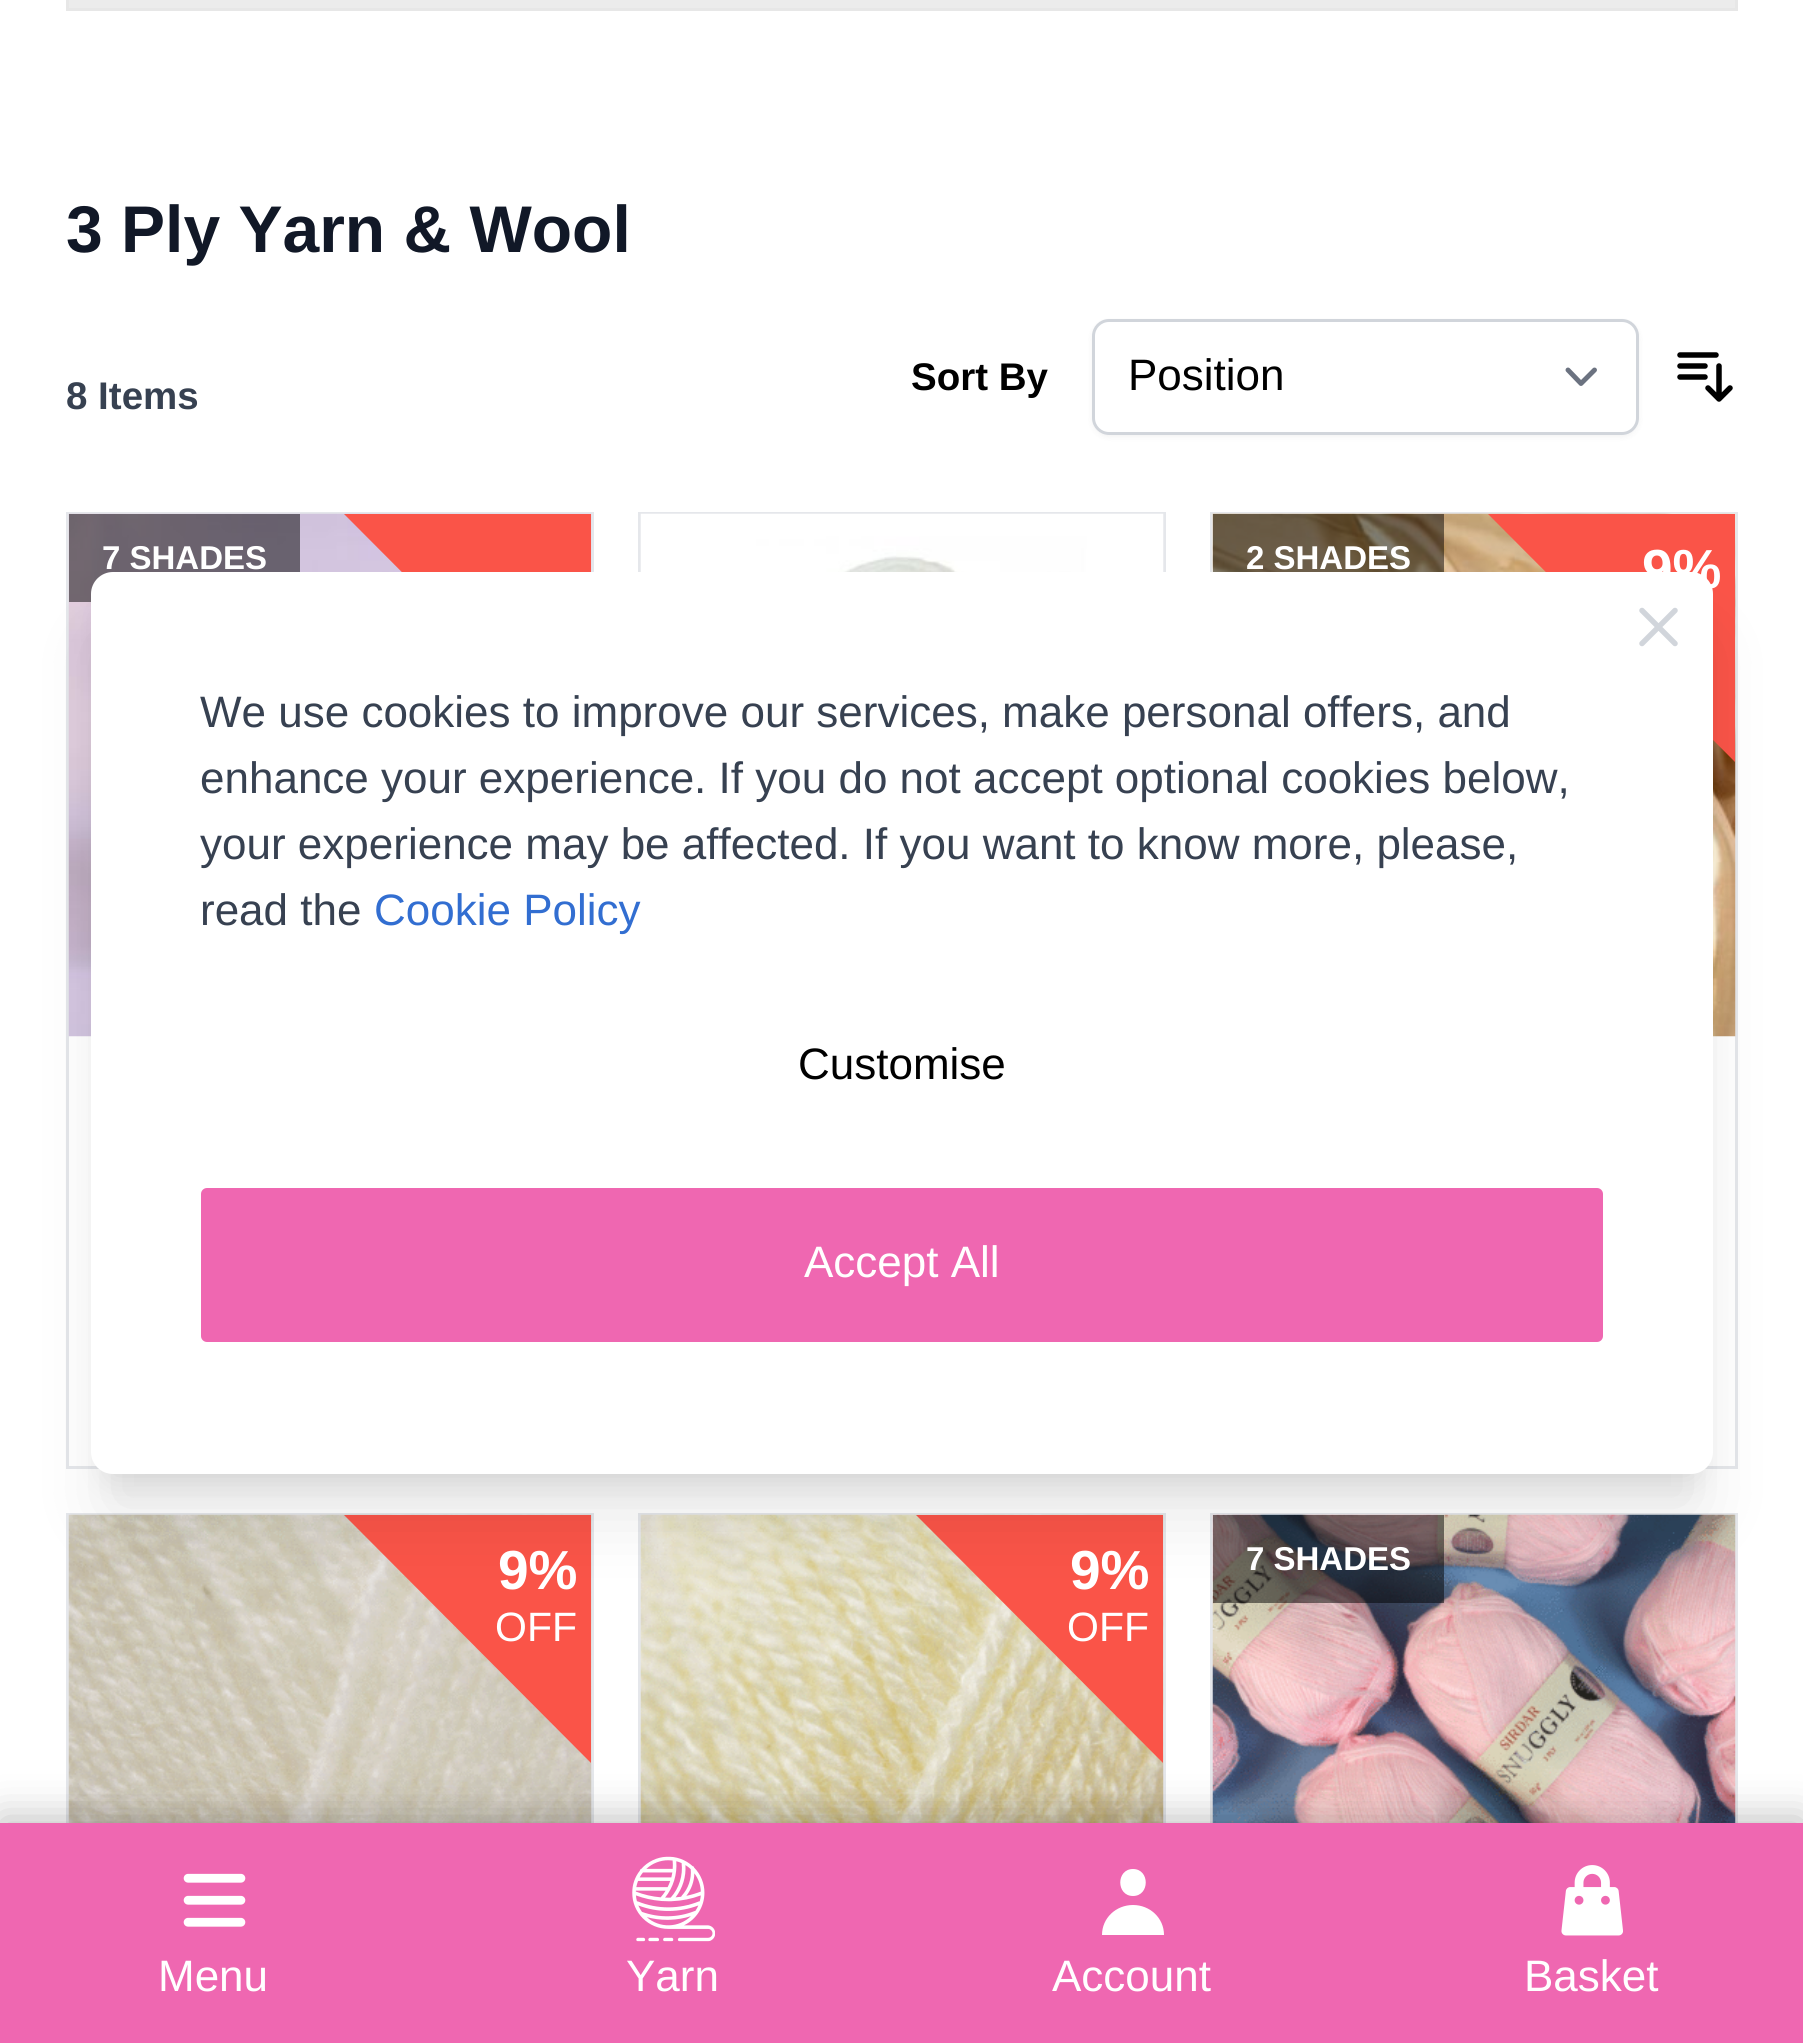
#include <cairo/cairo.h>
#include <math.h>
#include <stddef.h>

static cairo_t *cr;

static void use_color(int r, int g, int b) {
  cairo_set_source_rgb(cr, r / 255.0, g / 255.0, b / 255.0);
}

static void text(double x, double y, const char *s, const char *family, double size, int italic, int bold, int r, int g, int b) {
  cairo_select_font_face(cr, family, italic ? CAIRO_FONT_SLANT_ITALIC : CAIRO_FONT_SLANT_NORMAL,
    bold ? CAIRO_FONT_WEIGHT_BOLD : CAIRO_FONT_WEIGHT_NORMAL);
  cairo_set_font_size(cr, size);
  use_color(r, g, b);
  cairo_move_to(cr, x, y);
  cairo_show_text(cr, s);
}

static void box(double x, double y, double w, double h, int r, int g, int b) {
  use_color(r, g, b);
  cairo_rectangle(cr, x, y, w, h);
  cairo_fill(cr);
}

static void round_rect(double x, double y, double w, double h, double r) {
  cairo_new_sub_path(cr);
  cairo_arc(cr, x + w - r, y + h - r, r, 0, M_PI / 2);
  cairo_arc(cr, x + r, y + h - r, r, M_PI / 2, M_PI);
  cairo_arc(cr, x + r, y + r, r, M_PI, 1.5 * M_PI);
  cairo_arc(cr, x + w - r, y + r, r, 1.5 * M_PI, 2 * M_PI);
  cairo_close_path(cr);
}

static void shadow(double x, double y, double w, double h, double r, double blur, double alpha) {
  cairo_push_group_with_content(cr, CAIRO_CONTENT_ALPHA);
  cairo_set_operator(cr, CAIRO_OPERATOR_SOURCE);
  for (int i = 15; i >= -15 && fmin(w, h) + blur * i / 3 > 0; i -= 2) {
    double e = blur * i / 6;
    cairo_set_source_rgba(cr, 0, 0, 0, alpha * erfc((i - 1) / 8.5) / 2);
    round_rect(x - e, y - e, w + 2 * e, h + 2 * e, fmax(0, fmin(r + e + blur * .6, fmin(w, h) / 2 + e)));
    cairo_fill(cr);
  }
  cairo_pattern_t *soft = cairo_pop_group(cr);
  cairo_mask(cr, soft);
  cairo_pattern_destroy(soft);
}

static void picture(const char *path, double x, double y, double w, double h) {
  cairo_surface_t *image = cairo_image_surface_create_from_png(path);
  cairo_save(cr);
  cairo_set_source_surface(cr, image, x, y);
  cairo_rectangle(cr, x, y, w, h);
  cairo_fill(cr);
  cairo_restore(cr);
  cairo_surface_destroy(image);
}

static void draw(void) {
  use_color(255, 255, 255);
  cairo_paint(cr);
  use_color(236, 236, 236);
  cairo_rectangle(cr, 67.5, -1.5, 1669, 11);
  cairo_fill_preserve(cr);
  use_color(231, 231, 231);
  cairo_set_line_width(cr, 3);
  cairo_stroke(cr);
  use_color(0, 0, 0);
  shadow(1092, 322, 547, 115, 17, 3, 0.05);
  use_color(255, 255, 255);
  round_rect(1092, 319, 547, 116, 17);
  cairo_fill(cr);
  cairo_new_path(cr);
  cairo_move_to(cr, 1568, 370);
  cairo_line_to(cr, 1581, 383.5);
  cairo_line_to(cr, 1594.5, 370);
  use_color(107, 114, 128);
  cairo_set_line_width(cr, 4.9);
  cairo_set_line_cap(cr, CAIRO_LINE_CAP_ROUND);
  cairo_set_line_join(cr, CAIRO_LINE_JOIN_ROUND);
  cairo_stroke(cr);
  round_rect(1093.5, 320.5, 544, 113, 15.5);
  use_color(209, 213, 219);
  cairo_set_line_width(cr, 3);
  cairo_set_line_cap(cr, CAIRO_LINE_CAP_BUTT);
  cairo_set_line_join(cr, CAIRO_LINE_JOIN_MITER);
  cairo_stroke(cr);
  cairo_new_path(cr);
  cairo_move_to(cr, 1680, 355);
  cairo_line_to(cr, 1716, 355);
  cairo_move_to(cr, 1680, 366);
  cairo_line_to(cr, 1705, 366);
  cairo_move_to(cr, 1680, 377);
  cairo_line_to(cr, 1705, 377);
  cairo_move_to(cr, 1719, 366);
  cairo_line_to(cr, 1719, 399);
  cairo_move_to(cr, 1719, 399);
  cairo_line_to(cr, 1708, 388);
  cairo_move_to(cr, 1719, 399);
  cairo_line_to(cr, 1730, 388);
  use_color(0, 0, 0);
  cairo_set_line_width(cr, 5.5);
  cairo_set_line_cap(cr, CAIRO_LINE_CAP_ROUND);
  cairo_set_line_join(cr, CAIRO_LINE_JOIN_ROUND);
  cairo_stroke(cr);
  cairo_rectangle(cr, 67.5, 513.5, 525, 954);
  use_color(229, 231, 235);
  cairo_set_line_width(cr, 3);
  cairo_set_line_cap(cr, CAIRO_LINE_CAP_BUTT);
  cairo_set_line_join(cr, CAIRO_LINE_JOIN_MITER);
  cairo_stroke(cr);
  picture("img_01.png", 68, 513, 524, 524);
  cairo_set_source_rgba(cr, 0, 0, 0, 0.5);
  cairo_rectangle(cr, 69, 514, 231, 88);
  cairo_fill(cr);
  use_color(250, 84, 72);
  cairo_new_path(cr);
  cairo_move_to(cr, 591, 514);
  cairo_line_to(cr, 591, 762);
  cairo_line_to(cr, 344, 514);
  cairo_close_path(cr);
  cairo_fill(cr);
  cairo_rectangle(cr, 639.5, 513.5, 525, 954);
  use_color(229, 231, 235);
  cairo_stroke(cr);
  picture("img_02.png", 640, 513, 524, 59);
  cairo_rectangle(cr, 1211.5, 513.5, 525, 954);
  cairo_stroke(cr);
  picture("img_03.png", 1212, 513, 524, 524);
  cairo_set_source_rgba(cr, 0, 0, 0, 0.5);
  cairo_rectangle(cr, 1213, 514, 231, 58);
  cairo_fill(cr);
  use_color(250, 84, 72);
  cairo_new_path(cr);
  cairo_move_to(cr, 1735, 514);
  cairo_line_to(cr, 1735, 762);
  cairo_line_to(cr, 1488, 514);
  cairo_close_path(cr);
  cairo_fill(cr);
  cairo_rectangle(cr, 67.5, 1514.5, 525, 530);
  use_color(229, 231, 235);
  cairo_stroke(cr);
  picture("img_04.png", 68, 1514, 524, 309);
  use_color(250, 84, 72);
  cairo_new_path(cr);
  cairo_move_to(cr, 591, 1515);
  cairo_line_to(cr, 591, 1763);
  cairo_line_to(cr, 344, 1515);
  cairo_close_path(cr);
  cairo_fill(cr);
  cairo_rectangle(cr, 639.5, 1514.5, 525, 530);
  use_color(229, 231, 235);
  cairo_stroke(cr);
  picture("img_05.png", 640, 1514, 524, 309);
  use_color(250, 84, 72);
  cairo_new_path(cr);
  cairo_move_to(cr, 1163, 1515);
  cairo_line_to(cr, 1163, 1763);
  cairo_line_to(cr, 916, 1515);
  cairo_close_path(cr);
  cairo_fill(cr);
  cairo_rectangle(cr, 1211.5, 1514.5, 525, 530);
  use_color(229, 231, 235);
  cairo_stroke(cr);
  picture("img_06.png", 1212, 1514, 524, 309);
  cairo_set_source_rgba(cr, 0, 0, 0, 0.5);
  cairo_rectangle(cr, 1213, 1515, 231, 88);
  cairo_fill(cr);
  use_color(0, 0, 0);
  shadow(107, 611, 1590, 869, 6, 14, 0.1);
  shadow(105, 641, 1595, 874, 8, 34.5, 0.1);
  use_color(255, 255, 255);
  round_rect(91, 572, 1622, 902, 22);
  cairo_fill(cr);
  cairo_new_path(cr);
  cairo_move_to(cr, 1642, 643.5);
  cairo_line_to(cr, 1675, 610.5);
  cairo_move_to(cr, 1642, 610.5);
  cairo_line_to(cr, 1675, 643.5);
  use_color(209, 213, 219);
  cairo_set_line_width(cr, 5.5);
  cairo_set_line_cap(cr, CAIRO_LINE_CAP_ROUND);
  cairo_set_line_join(cr, CAIRO_LINE_JOIN_ROUND);
  cairo_stroke(cr);
  use_color(239, 103, 177);
  round_rect(201, 1188, 1402, 154, 6);
  cairo_fill(cr);
  use_color(0, 0, 0);
  shadow(0, 1818, 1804, 220, 0, 20.5, 0.25);
  box(0, 1823, 1803, 220, 239, 103, 177);
  picture("img_07.png", 183, 1873, 63, 54);
  picture("img_08.png", 632, 1856, 83, 86);
  use_color(255, 255, 255);
  cairo_set_fill_rule(cr, CAIRO_FILL_RULE_EVEN_ODD);
  cairo_new_path(cr);
  cairo_move_to(cr, 1133, 1896);
  cairo_curve_to(cr, 1150, 1896, 1150, 1869, 1133, 1869);
  cairo_curve_to(cr, 1116, 1869, 1116, 1896, 1133, 1896);
  cairo_close_path(cr);
  cairo_move_to(cr, 1102, 1935);
  cairo_curve_to(cr, 1102, 1918, 1116, 1905, 1133, 1905);
  cairo_curve_to(cr, 1150, 1905, 1164, 1918, 1164, 1935);
  cairo_close_path(cr);
  cairo_fill(cr);
  picture("img_09.png", 1561, 1865, 62, 71);
  text(66, 252, "3 Ply Yarn & Wool", "Liberation Sans", 66, 0, 1, 17, 24, 39);
  text(66, 409, "8 Items", "Liberation Sans", 38.5, 0, 1, 55, 65, 81);
  text(911, 390, "Sort By", "Liberation Sans", 38.5, 0, 1, 0, 0, 0);
  text(1128, 390, "Position", "Liberation Sans", 44, 0, 0, 0, 0, 0);
  text(102, 569, "7 SHADES", "Liberation Sans", 33, 0, 1, 255, 255, 255);
  text(1246, 569, "2 SHADES", "Liberation Sans", 33, 0, 1, 255, 255, 255);
  text(1642, 588, "9%", "Liberation Sans", 55, 0, 1, 255, 255, 255);
  text(498, 1589, "9%", "Liberation Sans", 55, 0, 1, 255, 255, 255);
  text(495, 1641, "OFF", "Liberation Sans", 41, 0, 0, 255, 255, 255);
  text(1070, 1589, "9%", "Liberation Sans", 55, 0, 1, 255, 255, 255);
  text(1067, 1641, "OFF", "Liberation Sans", 41, 0, 0, 255, 255, 255);
  text(1246, 1570, "7 SHADES", "Liberation Sans", 33, 0, 1, 255, 255, 255);
  text(200, 727, "We use cookies to improve our services, make personal offers, and", "Liberation Sans", 44, 0, 0, 55, 65, 81);
  text(200, 793, "enhance your experience. If you do not accept optional cookies below,", "Liberation Sans", 44, 0, 0, 55, 65, 81);
  text(200, 859, "your experience may be affected. If you want to know more, please,", "Liberation Sans", 44, 0, 0, 55, 65, 81);
  text(200, 925, "read the", "Liberation Sans", 44, 0, 0, 55, 65, 81);
  text(374, 925, "Cookie Policy", "Liberation Sans", 44, 0, 0, 50, 110, 209);
  text(798, 1079, "Customise", "Liberation Sans", 44, 0, 0, 0, 0, 0);
  text(804, 1277, "Accept All", "Liberation Sans", 44, 0, 0, 255, 255, 255);
  text(158, 1991, "Menu", "Liberation Sans", 44, 0, 0, 255, 255, 255);
  text(626, 1991, "Yarn", "Liberation Sans", 44, 0, 0, 255, 255, 255);
  text(1052, 1991, "Account", "Liberation Sans", 44, 0, 0, 255, 255, 255);
  text(1524, 1991, "Basket", "Liberation Sans", 44, 0, 0, 255, 255, 255);
}

int main(void) {
  cairo_surface_t *surface = cairo_image_surface_create(CAIRO_FORMAT_RGB24, 1803, 2043);
  cr = cairo_create(surface);
  cairo_font_options_t *options = cairo_font_options_create();
  cairo_font_options_set_hint_metrics(options, CAIRO_HINT_METRICS_OFF);
  cairo_font_options_set_hint_style(options, CAIRO_HINT_STYLE_NONE);
  cairo_set_font_options(cr, options);
  cairo_set_miter_limit(cr, 4);
  draw();
  cairo_surface_write_to_png(surface, "out.png");
  cairo_font_options_destroy(options);
  cairo_destroy(cr);
  cairo_surface_destroy(surface);
  return 0;
}
